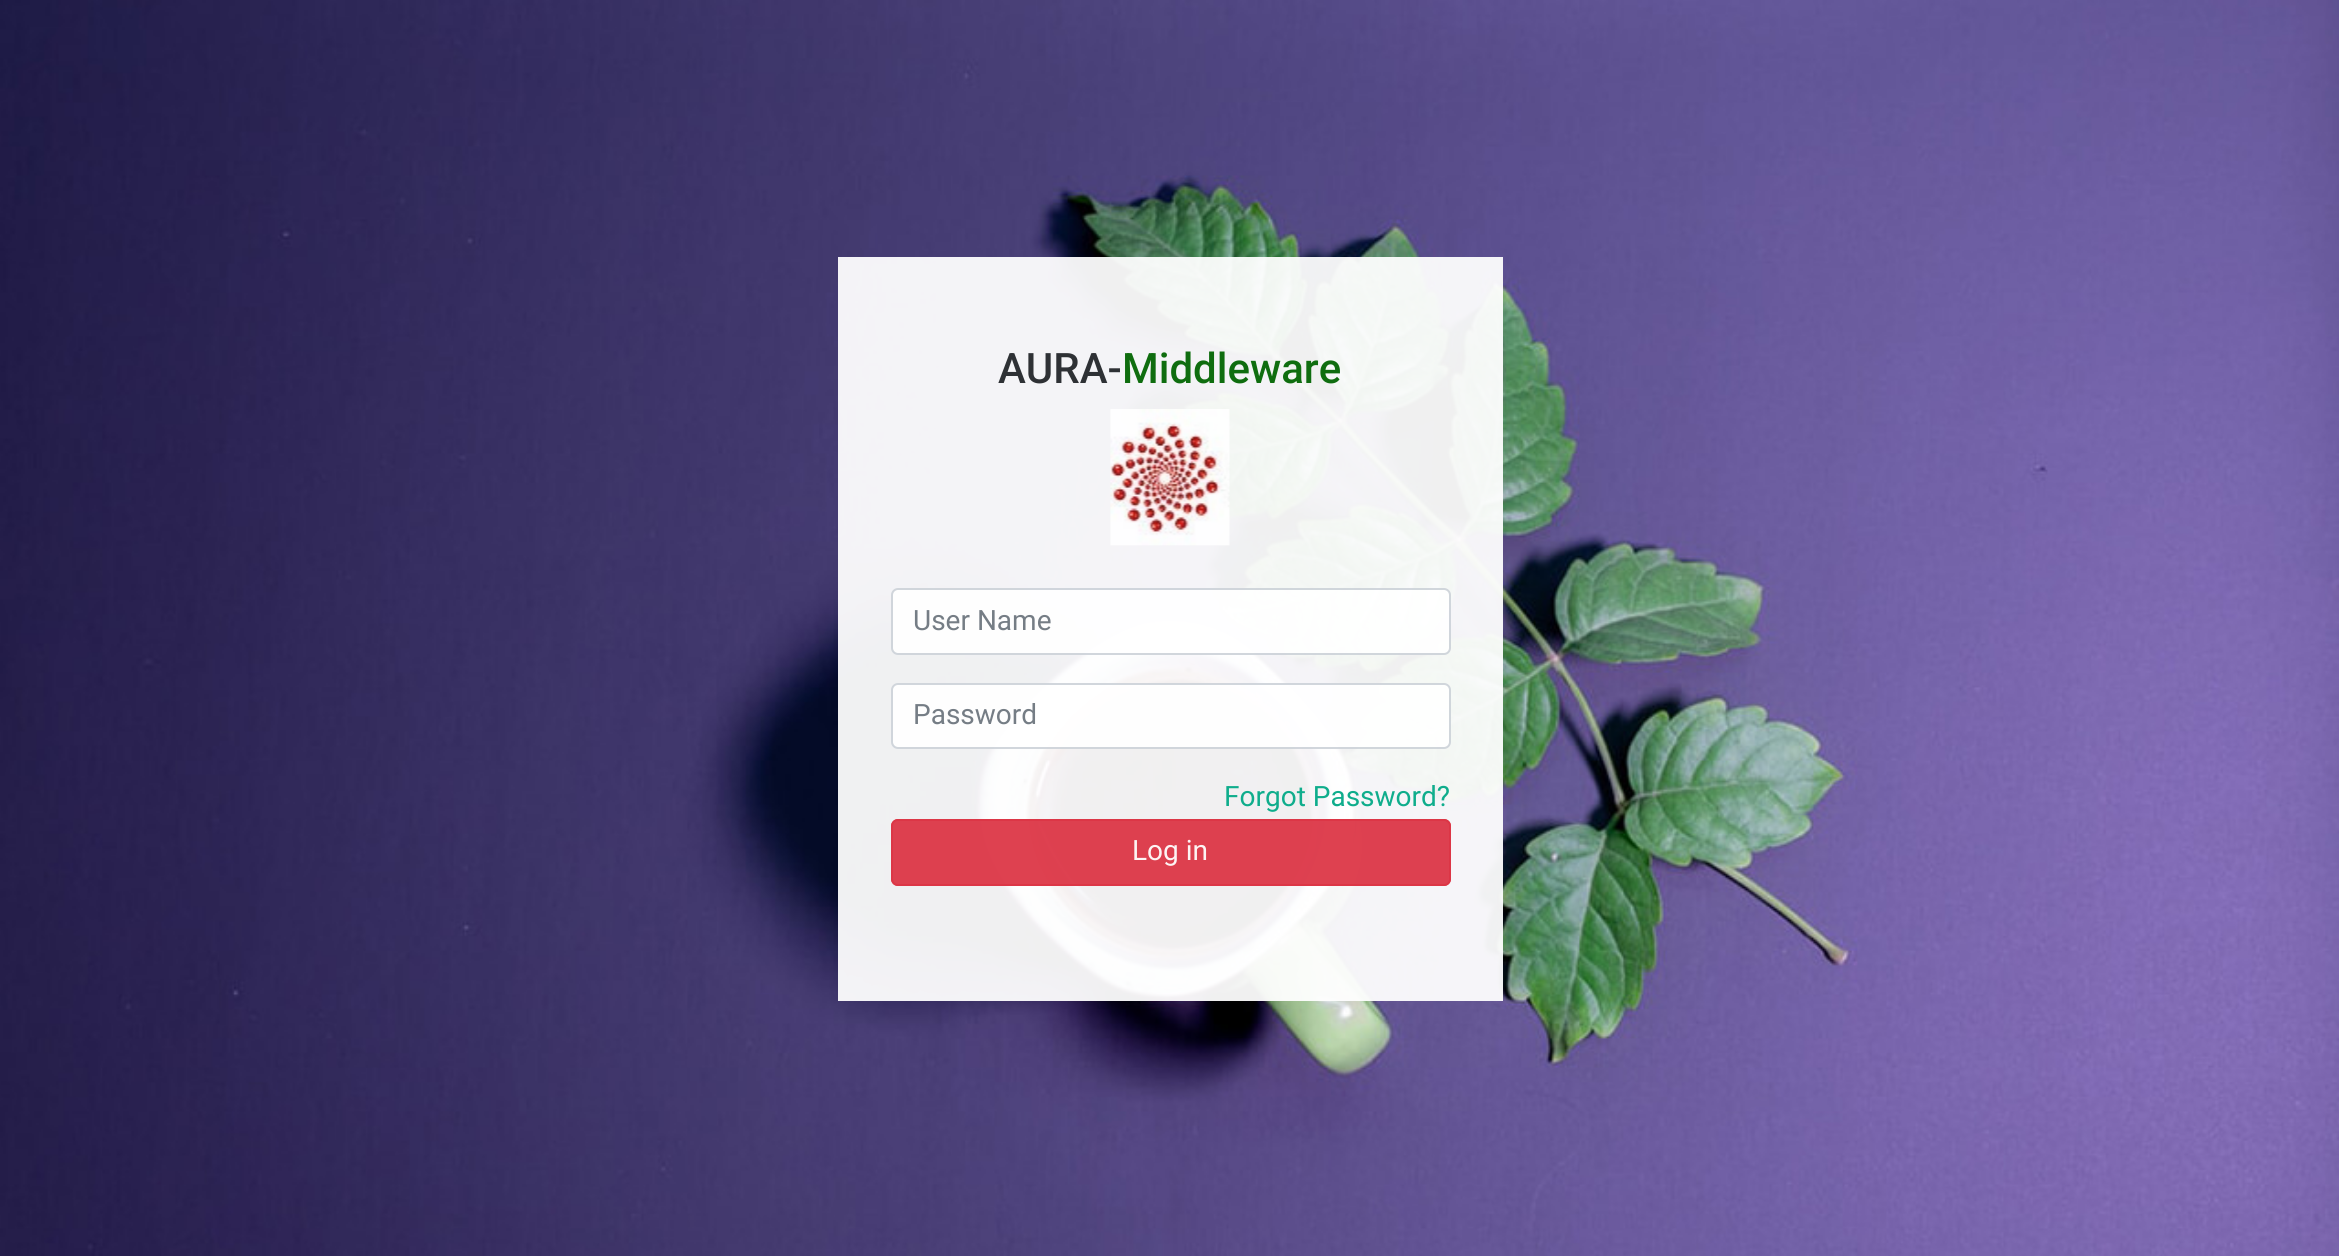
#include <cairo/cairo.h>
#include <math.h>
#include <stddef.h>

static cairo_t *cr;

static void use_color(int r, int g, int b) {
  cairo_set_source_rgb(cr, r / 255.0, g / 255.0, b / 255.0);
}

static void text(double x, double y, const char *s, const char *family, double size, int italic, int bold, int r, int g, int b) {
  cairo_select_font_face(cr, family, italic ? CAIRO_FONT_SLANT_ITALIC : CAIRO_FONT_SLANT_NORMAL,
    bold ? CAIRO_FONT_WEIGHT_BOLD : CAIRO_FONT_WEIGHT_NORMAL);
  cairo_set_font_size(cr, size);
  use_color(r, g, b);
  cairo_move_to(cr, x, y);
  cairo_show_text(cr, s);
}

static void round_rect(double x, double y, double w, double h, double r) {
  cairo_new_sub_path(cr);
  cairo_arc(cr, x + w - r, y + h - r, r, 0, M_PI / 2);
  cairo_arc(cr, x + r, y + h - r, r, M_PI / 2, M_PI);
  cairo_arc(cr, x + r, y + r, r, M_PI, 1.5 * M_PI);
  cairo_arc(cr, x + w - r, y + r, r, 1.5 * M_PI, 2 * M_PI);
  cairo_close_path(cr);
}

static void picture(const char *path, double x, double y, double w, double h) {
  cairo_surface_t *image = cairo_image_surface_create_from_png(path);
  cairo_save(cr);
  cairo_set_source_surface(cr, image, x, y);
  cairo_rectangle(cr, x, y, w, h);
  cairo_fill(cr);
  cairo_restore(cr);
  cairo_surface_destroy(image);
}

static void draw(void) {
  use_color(255, 255, 255);
  cairo_paint(cr);
  picture("img_01.png", 0, 0, 2339, 1256);
  cairo_set_source_rgba(cr, 1, 1, 1, 0.94);
  cairo_rectangle(cr, 838, 257, 665, 744);
  cairo_fill(cr);
  picture("img_02.png", 1110, 409, 120, 137);
  round_rect(893, 590, 556, 63, 5);
  cairo_fill(cr);
  round_rect(892, 589, 558, 65, 6);
  cairo_set_source_rgba(cr, 0.808, 0.831, 0.855, 0.94);
  cairo_stroke(cr);
  cairo_set_source_rgba(cr, 1, 1, 1, 0.94);
  round_rect(893, 684, 556, 63, 5);
  cairo_fill(cr);
  round_rect(892, 684, 558, 64, 6);
  cairo_set_source_rgba(cr, 0.808, 0.831, 0.855, 0.94);
  cairo_stroke(cr);
  cairo_set_source_rgba(cr, 0.863, 0.208, 0.271, 0.94);
  round_rect(891, 819, 560, 67, 7);
  cairo_fill(cr);
  round_rect(892, 820, 558, 65, 6);
  cairo_stroke(cr);
  text(998, 383, "AURA-", "Roboto Medium", 42, 0, 0, 46, 49, 53);
  text(1122, 383, "Middleware", "Roboto Medium", 42, 0, 0, 15, 109, 15);
  text(913, 630, "User Name", "Roboto", 28, 0, 0, 117, 125, 133);
  text(913, 724, "Password", "Roboto", 28, 0, 0, 117, 125, 133);
  text(1224, 806, "Forgot Password?", "Roboto", 28, 0, 0, 15, 173, 140);
  text(1132, 860, "Log in", "Roboto", 28, 0, 0, 253, 244, 244);
}

int main(void) {
  cairo_surface_t *surface = cairo_image_surface_create(CAIRO_FORMAT_RGB24, 2339, 1256);
  cr = cairo_create(surface);
  cairo_font_options_t *options = cairo_font_options_create();
  cairo_font_options_set_hint_metrics(options, CAIRO_HINT_METRICS_OFF);
  cairo_font_options_set_hint_style(options, CAIRO_HINT_STYLE_NONE);
  cairo_set_font_options(cr, options);
  cairo_set_miter_limit(cr, 4);
  draw();
  cairo_surface_write_to_png(surface, "out.png");
  cairo_font_options_destroy(options);
  cairo_destroy(cr);
  cairo_surface_destroy(surface);
  return 0;
}
